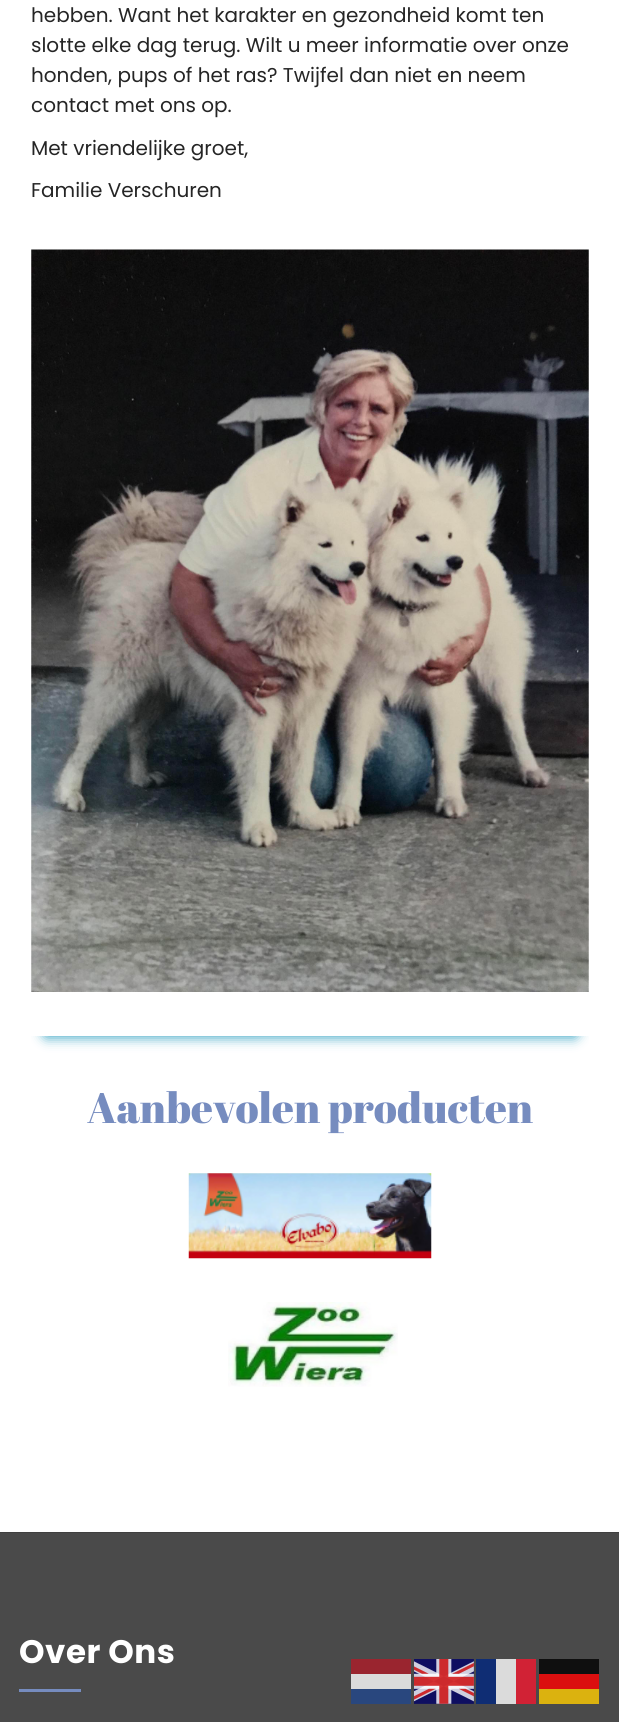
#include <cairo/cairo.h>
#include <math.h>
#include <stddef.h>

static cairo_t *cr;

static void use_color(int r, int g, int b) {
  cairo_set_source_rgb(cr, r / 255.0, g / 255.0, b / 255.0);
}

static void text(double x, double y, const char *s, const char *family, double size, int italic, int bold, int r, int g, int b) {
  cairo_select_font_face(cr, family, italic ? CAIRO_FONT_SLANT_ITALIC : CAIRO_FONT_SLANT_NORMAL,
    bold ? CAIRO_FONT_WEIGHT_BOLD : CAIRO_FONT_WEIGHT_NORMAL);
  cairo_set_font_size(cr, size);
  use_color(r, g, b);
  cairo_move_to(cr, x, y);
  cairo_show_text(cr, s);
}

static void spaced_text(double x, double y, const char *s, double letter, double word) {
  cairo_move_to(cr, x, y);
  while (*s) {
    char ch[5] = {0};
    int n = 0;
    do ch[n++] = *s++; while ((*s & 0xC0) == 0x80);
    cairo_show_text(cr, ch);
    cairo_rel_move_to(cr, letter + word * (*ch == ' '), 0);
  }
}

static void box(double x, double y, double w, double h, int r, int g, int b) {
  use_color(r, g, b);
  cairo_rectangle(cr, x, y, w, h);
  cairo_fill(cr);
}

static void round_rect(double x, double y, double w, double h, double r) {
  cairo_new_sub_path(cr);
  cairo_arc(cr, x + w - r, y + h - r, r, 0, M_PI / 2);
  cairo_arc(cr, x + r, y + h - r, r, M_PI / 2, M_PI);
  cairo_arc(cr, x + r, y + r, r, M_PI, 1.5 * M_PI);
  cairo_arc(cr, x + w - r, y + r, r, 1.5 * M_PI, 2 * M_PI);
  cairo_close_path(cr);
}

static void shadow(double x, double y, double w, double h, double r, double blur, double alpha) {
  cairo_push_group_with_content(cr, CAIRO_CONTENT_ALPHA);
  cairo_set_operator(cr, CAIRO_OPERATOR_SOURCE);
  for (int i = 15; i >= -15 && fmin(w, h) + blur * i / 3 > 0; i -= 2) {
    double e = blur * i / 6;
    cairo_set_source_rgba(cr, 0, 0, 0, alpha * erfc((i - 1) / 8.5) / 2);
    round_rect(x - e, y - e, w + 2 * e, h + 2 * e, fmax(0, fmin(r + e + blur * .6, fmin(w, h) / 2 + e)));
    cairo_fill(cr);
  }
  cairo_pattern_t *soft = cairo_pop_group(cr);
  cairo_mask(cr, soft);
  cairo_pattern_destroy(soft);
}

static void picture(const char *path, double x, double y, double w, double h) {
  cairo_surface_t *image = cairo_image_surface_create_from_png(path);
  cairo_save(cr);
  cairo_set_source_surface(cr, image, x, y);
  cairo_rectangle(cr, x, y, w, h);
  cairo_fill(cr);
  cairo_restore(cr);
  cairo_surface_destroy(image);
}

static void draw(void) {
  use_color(255, 255, 255);
  cairo_paint(cr);
  picture("img_01.png", 31, 249, 558, 743);
  cairo_save(cr);
  cairo_rectangle(cr, 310, 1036, 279, 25);
  cairo_clip(cr);
  use_color(76, 173, 201);
  shadow(18, 1023, 560, 15, 7.5, 6, 1);
  cairo_restore(cr);
  cairo_save(cr);
  cairo_rectangle(cr, 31, 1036, 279, 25);
  cairo_clip(cr);
  use_color(76, 173, 201);
  shadow(43, 1023, 560, 15, 7.5, 6, 1);
  cairo_restore(cr);
  picture("img_02.png", 188, 1173, 244, 86);
  picture("img_03.png", 228, 1302, 170, 85);
  box(0, 1532, 619, 1, 64, 64, 64);
  box(0, 1533, 619, 189, 74, 74, 74);
  box(19, 1689, 62, 3, 118, 140, 191);
  box(351, 1659, 60, 15, 154, 37, 47);
  picture("img_04.png", 414, 1659, 60, 45);
  box(476, 1659, 20, 45, 15, 45, 116);
  box(496, 1659, 20, 45, 219, 219, 219);
  box(516, 1659, 20, 45, 209, 34, 53);
  box(539, 1659, 60, 15, 15, 15, 15);
  box(351, 1674, 60, 15, 219, 219, 219);
  box(539, 1674, 60, 15, 219, 15, 15);
  box(351, 1689, 60, 15, 41, 71, 126);
  box(539, 1689, 60, 15, 219, 178, 15);
  text(31, 22, "hebben. Want het karakter en gezondheid komt ten", "Poppins", 20, 0, 0, 37, 37, 37);
  text(31, 52, "slotte elke dag terug. Wilt u meer informatie over onze", "Poppins", 20, 0, 0, 37, 37, 37);
  text(31, 82, "honden, pups of het ras? Twijfel dan niet en neem", "Poppins", 20, 0, 0, 37, 37, 37);
  text(31, 112, "contact met ons op.", "Poppins", 20, 0, 0, 37, 37, 37);
  text(31, 155, "Met vriendelijke groet,", "Poppins", 20, 0, 0, 37, 37, 37);
  text(31, 197, "Familie Verschuren", "Poppins", 20, 0, 0, 37, 37, 37);
  text(87, 1123, "Aanbevolen producten", "Abril Fatface", 42.5, 0, 0, 118, 140, 191);
  cairo_select_font_face(cr, "Poppins", CAIRO_FONT_SLANT_NORMAL, CAIRO_FONT_WEIGHT_BOLD);
  cairo_set_font_size(cr, 32.5);
  use_color(255, 255, 255);
  spaced_text(19, 1663, "Over Ons", 0.5, 0);
}

int main(void) {
  cairo_surface_t *surface = cairo_image_surface_create(CAIRO_FORMAT_RGB24, 619, 1722);
  cr = cairo_create(surface);
  cairo_font_options_t *options = cairo_font_options_create();
  cairo_font_options_set_hint_metrics(options, CAIRO_HINT_METRICS_OFF);
  cairo_font_options_set_hint_style(options, CAIRO_HINT_STYLE_NONE);
  cairo_set_font_options(cr, options);
  cairo_set_miter_limit(cr, 4);
  draw();
  cairo_surface_write_to_png(surface, "out.png");
  cairo_font_options_destroy(options);
  cairo_destroy(cr);
  cairo_surface_destroy(surface);
  return 0;
}
